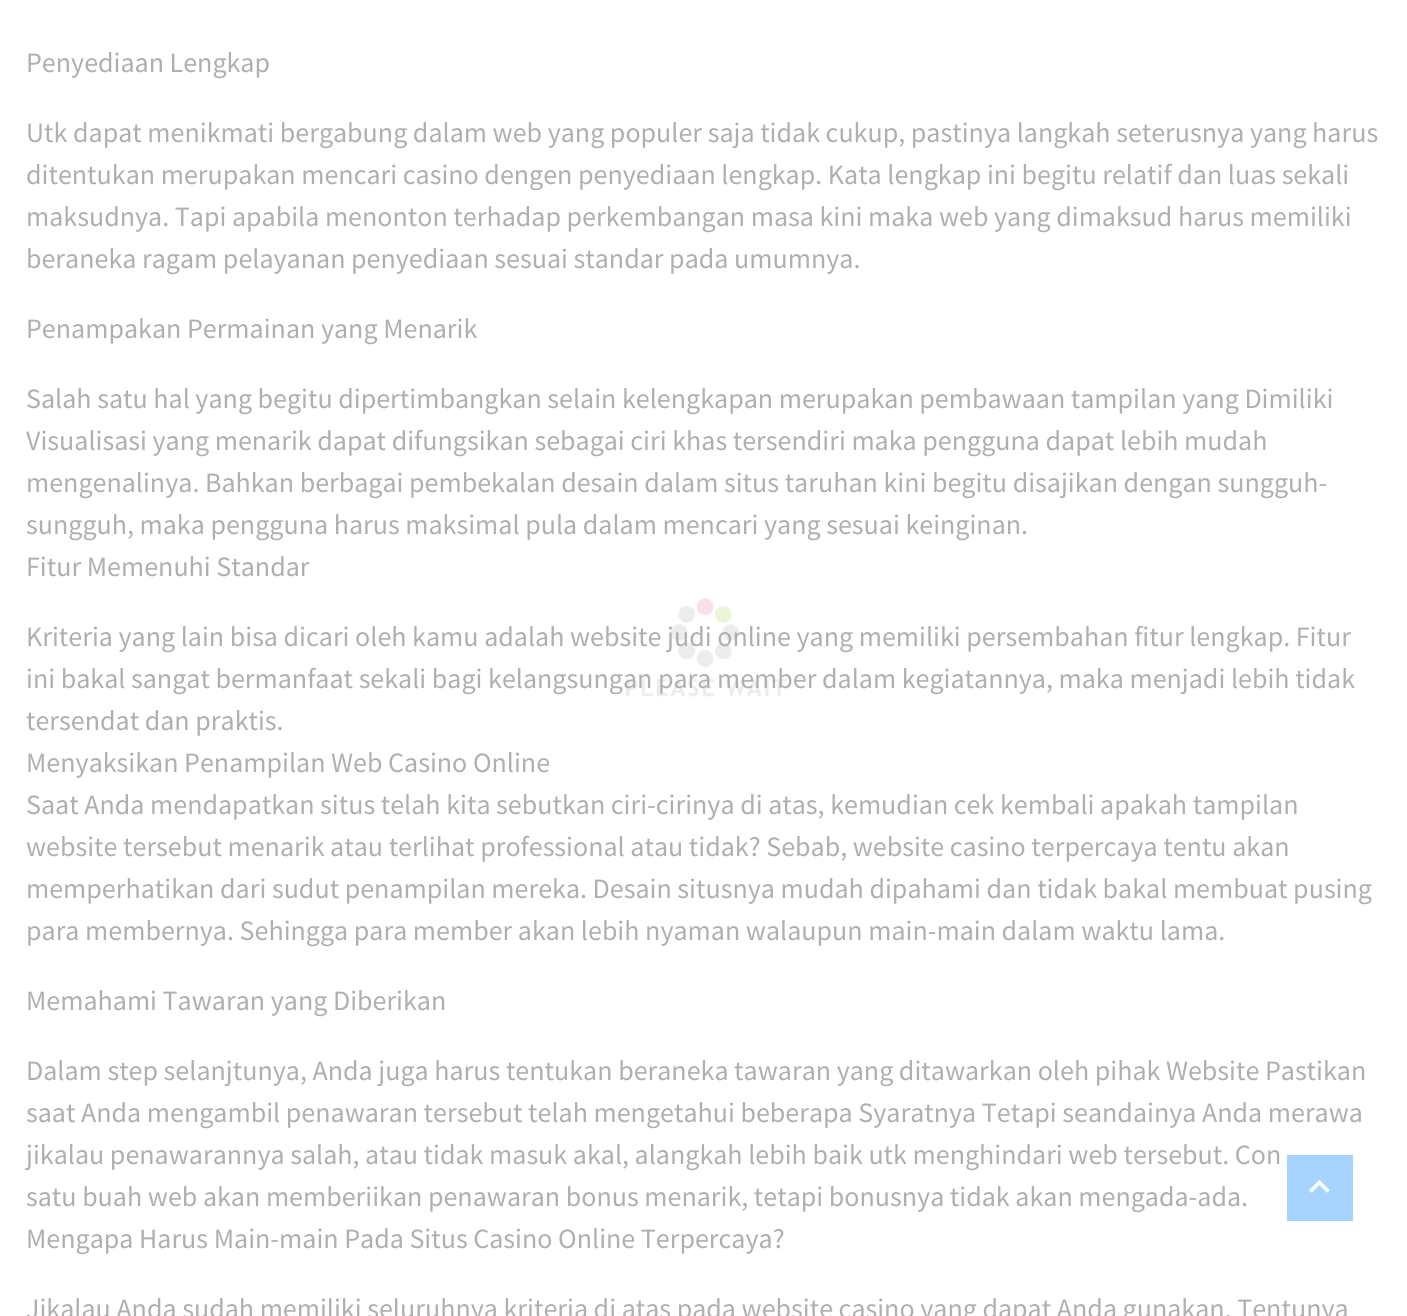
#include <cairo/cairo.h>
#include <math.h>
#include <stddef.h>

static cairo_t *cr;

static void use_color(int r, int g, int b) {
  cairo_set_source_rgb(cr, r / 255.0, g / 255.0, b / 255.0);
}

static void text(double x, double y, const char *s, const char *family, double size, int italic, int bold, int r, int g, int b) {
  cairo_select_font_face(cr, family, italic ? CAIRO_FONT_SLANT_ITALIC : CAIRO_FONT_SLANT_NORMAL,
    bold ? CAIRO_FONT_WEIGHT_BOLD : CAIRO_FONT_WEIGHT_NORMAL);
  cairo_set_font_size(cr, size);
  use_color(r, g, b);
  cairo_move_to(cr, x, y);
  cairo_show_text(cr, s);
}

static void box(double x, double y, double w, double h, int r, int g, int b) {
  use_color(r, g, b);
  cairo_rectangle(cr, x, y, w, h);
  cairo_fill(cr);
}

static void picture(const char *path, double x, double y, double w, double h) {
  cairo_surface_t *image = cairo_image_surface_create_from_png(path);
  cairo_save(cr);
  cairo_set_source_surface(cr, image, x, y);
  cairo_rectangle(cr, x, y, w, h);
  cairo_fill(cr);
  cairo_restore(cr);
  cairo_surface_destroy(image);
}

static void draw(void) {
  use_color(255, 255, 255);
  cairo_paint(cr);
  box(1287, 1155, 66, 66, 166, 212, 255);
  picture("img_02.png", 1309, 1180, 21, 13);
  text(26, 72, "Penyediaan Lengkap", "Source Sans Pro", 28, 0, 0, 175, 175, 176);
  text(26, 142, "Utk dapat menikmati bergabung dalam web yang populer saja tidak cukup, pastinya langkah seterusnya yang harus", "Source Sans Pro", 28, 0, 0, 175, 175, 176);
  text(26, 184, "ditentukan merupakan mencari casino dengen penyediaan lengkap. Kata lengkap ini begitu relatif dan luas sekali", "Source Sans Pro", 28, 0, 0, 175, 175, 176);
  text(26, 226, "maksudnya. Tapi apabila menonton terhadap perkembangan masa kini maka web yang dimaksud harus memiliki", "Source Sans Pro", 28, 0, 0, 175, 175, 176);
  text(26, 268, "beraneka ragam pelayanan penyediaan sesuai standar pada umumnya.", "Source Sans Pro", 28, 0, 0, 175, 175, 176);
  text(26, 338, "Penampakan Permainan yang Menarik", "Source Sans Pro", 28, 0, 0, 175, 175, 176);
  text(26, 408, "Salah satu hal yang begitu dipertimbangkan selain kelengkapan merupakan pembawaan tampilan yang Dimiliki", "Source Sans Pro", 28, 0, 0, 175, 175, 176);
  text(26, 450, "Visualisasi yang menarik dapat difungsikan sebagai ciri khas tersendiri maka pengguna dapat lebih mudah", "Source Sans Pro", 28, 0, 0, 175, 175, 176);
  text(26, 492, "mengenalinya. Bahkan berbagai pembekalan desain dalam situs taruhan kini begitu disajikan dengan sungguh-", "Source Sans Pro", 28, 0, 0, 175, 175, 176);
  text(26, 534, "sungguh, maka pengguna harus maksimal pula dalam mencari yang sesuai keinginan.", "Source Sans Pro", 28, 0, 0, 175, 175, 176);
  text(26, 576, "Fitur Memenuhi Standar", "Source Sans Pro", 28, 0, 0, 175, 175, 176);
  text(26, 646, "Kriteria yang lain bisa dicari oleh kamu adalah website judi online yang memiliki persembahan fitur lengkap. Fitur", "Source Sans Pro", 28, 0, 0, 175, 175, 176);
  text(26, 688, "ini bakal sangat bermanfaat sekali bagi kelangsungan para member dalam kegiatannya, maka menjadi lebih tidak", "Source Sans Pro", 28, 0, 0, 175, 175, 176);
  text(26, 730, "tersendat dan praktis.", "Source Sans Pro", 28, 0, 0, 175, 175, 176);
  text(26, 772, "Menyaksikan Penampilan Web Casino Online", "Source Sans Pro", 28, 0, 0, 175, 175, 176);
  text(26, 814, "Saat Anda mendapatkan situs telah kita sebutkan ciri-cirinya di atas, kemudian cek kembali apakah tampilan", "Source Sans Pro", 28, 0, 0, 175, 175, 176);
  text(26, 856, "website tersebut menarik atau terlihat professional atau tidak? Sebab, website casino terpercaya tentu akan", "Source Sans Pro", 28, 0, 0, 175, 175, 176);
  text(26, 898, "memperhatikan dari sudut penampilan mereka. Desain situsnya mudah dipahami dan tidak bakal membuat pusing", "Source Sans Pro", 28, 0, 0, 175, 175, 176);
  text(26, 940, "para membernya. Sehingga para member akan lebih nyaman walaupun main-main dalam waktu lama.", "Source Sans Pro", 28, 0, 0, 175, 175, 176);
  text(26, 1010, "Memahami Tawaran yang Diberikan", "Source Sans Pro", 28, 0, 0, 175, 175, 176);
  text(26, 1080, "Dalam step selanjtunya, Anda juga harus tentukan beraneka tawaran yang ditawarkan oleh pihak Website Pastikan", "Source Sans Pro", 28, 0, 0, 175, 175, 176);
  text(26, 1122, "saat Anda mengambil penawaran tersebut telah mengetahui beberapa Syaratnya Tetapi seandainya Anda merawa", "Source Sans Pro", 28, 0, 0, 175, 175, 176);
  text(26, 1164, "jikalau penawarannya salah, atau tidak masuk akal, alangkah lebih baik utk menghindari web tersebut. Con", "Source Sans Pro", 28, 0, 0, 175, 175, 176);
  text(26, 1206, "satu buah web akan memberiikan penawaran bonus menarik, tetapi bonusnya tidak akan mengada-ada.", "Source Sans Pro", 28, 0, 0, 175, 175, 176);
  text(26, 1248, "Mengapa Harus Main-main Pada Situs Casino Online Terpercaya?", "Source Sans Pro", 28, 0, 0, 175, 175, 176);
  text(26, 1318, "Jikalau Anda sudah memiliki seluruhnya kriteria di atas pada website casino yang dapat Anda gunakan. Tentunya", "Source Sans Pro", 28, 0, 0, 175, 175, 176);
  picture("img_01.png", 626, 598, 161, 99);
}

int main(void) {
  cairo_surface_t *surface = cairo_image_surface_create(CAIRO_FORMAT_RGB24, 1407, 1316);
  cr = cairo_create(surface);
  cairo_font_options_t *options = cairo_font_options_create();
  cairo_font_options_set_hint_metrics(options, CAIRO_HINT_METRICS_OFF);
  cairo_font_options_set_hint_style(options, CAIRO_HINT_STYLE_NONE);
  cairo_set_font_options(cr, options);
  cairo_set_miter_limit(cr, 4);
  draw();
  cairo_surface_write_to_png(surface, "out.png");
  cairo_font_options_destroy(options);
  cairo_destroy(cr);
  cairo_surface_destroy(surface);
  return 0;
}
